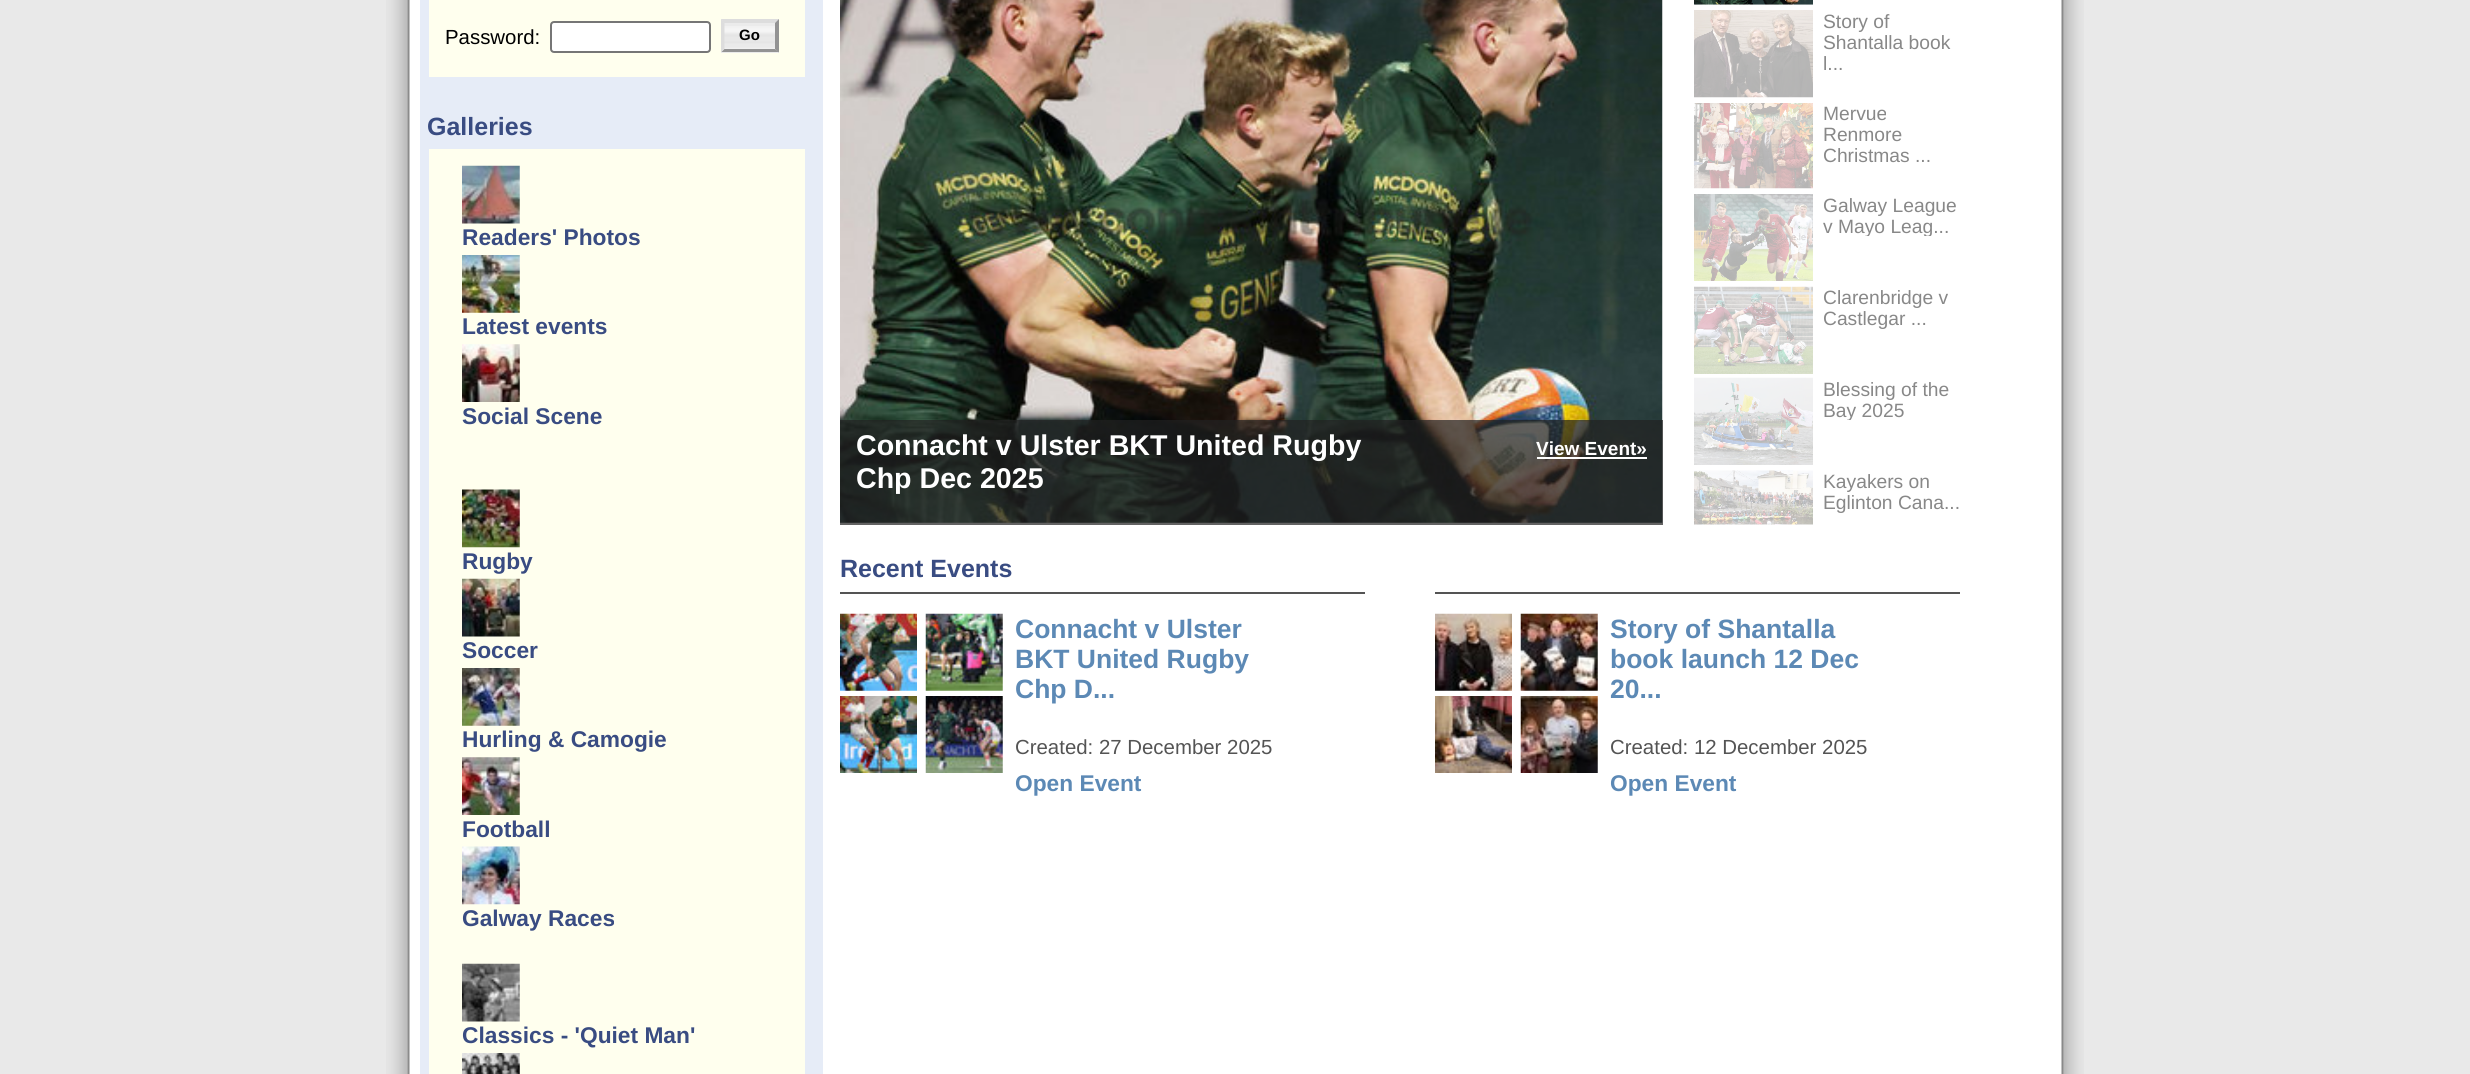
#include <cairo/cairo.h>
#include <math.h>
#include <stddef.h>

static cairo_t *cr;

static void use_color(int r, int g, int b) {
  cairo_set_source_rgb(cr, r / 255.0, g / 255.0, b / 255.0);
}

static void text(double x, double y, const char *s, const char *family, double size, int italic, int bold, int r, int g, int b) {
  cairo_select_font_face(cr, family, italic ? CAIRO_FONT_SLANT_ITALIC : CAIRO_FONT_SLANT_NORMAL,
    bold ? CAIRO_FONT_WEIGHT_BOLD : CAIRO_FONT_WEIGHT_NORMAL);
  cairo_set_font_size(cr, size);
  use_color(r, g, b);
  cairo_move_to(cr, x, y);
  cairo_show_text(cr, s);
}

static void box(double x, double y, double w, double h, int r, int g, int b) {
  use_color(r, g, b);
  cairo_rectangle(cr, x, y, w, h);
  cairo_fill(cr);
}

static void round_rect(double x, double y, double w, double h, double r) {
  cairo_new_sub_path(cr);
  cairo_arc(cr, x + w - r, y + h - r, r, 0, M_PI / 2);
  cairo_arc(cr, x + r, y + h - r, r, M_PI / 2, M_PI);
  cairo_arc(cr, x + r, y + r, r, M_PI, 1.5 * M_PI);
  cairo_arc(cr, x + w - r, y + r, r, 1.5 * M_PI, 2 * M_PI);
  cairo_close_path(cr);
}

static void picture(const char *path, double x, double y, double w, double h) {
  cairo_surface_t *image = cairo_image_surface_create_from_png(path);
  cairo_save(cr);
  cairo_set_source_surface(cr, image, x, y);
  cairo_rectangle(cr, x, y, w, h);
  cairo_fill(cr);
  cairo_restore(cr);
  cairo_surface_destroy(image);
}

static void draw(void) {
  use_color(233, 233, 233);
  cairo_paint(cr);
  picture("img_01.png", 386, 0, 34, 1074);
  box(823, 0, 1228, 1074, 255, 255, 255);
  box(420, 0, 403, 1074, 230, 236, 247);
  box(429, 0, 376, 77, 255, 255, 238);
  use_color(255, 255, 255);
  round_rect(551, 22, 159, 30, 3);
  cairo_fill_preserve(cr);
  use_color(118, 118, 118);
  cairo_stroke(cr);
  box(721, 19, 58, 34, 235, 235, 235);
  picture("img_02.png", 721, 26, 58, 26);
  use_color(221, 221, 221);
  cairo_new_path(cr);
  cairo_move_to(cr, 721, 19);
  cairo_line_to(cr, 779, 19);
  cairo_line_to(cr, 775, 23);
  cairo_line_to(cr, 724, 23);
  cairo_close_path(cr);
  cairo_fill(cr);
  use_color(147, 147, 147);
  cairo_new_path(cr);
  cairo_move_to(cr, 779, 19);
  cairo_line_to(cr, 779, 52.5);
  cairo_line_to(cr, 775, 49);
  cairo_line_to(cr, 775, 23);
  cairo_close_path(cr);
  cairo_fill(cr);
  cairo_new_path(cr);
  cairo_move_to(cr, 779, 52);
  cairo_line_to(cr, 721, 52);
  cairo_line_to(cr, 724, 49);
  cairo_line_to(cr, 775, 49);
  cairo_close_path(cr);
  cairo_fill(cr);
  use_color(221, 221, 221);
  cairo_new_path(cr);
  cairo_move_to(cr, 721, 52.5);
  cairo_line_to(cr, 721, 19);
  cairo_line_to(cr, 724.5, 23);
  cairo_line_to(cr, 724.5, 49);
  cairo_close_path(cr);
  cairo_fill(cr);
  box(429, 149, 376, 925, 255, 255, 238);
  picture("img_03.png", 462, 165, 58, 59);
  picture("img_04.png", 462, 255, 58, 58);
  picture("img_05.png", 462, 344, 58, 58);
  picture("img_06.png", 462, 489, 58, 59);
  picture("img_07.png", 462, 578, 58, 59);
  picture("img_08.png", 462, 668, 58, 58);
  picture("img_09.png", 462, 757, 58, 58);
  picture("img_10.png", 462, 846, 58, 59);
  picture("img_11.png", 462, 963, 58, 59);
  picture("img_12.png", 462, 1053, 58, 21);
  picture("img_13.png", 840, 0, 823, 523);
  cairo_set_source_rgba(cr, 0.133, 0.133, 0.133, 0.7);
  cairo_rectangle(cr, 840, 420, 823, 105);
  cairo_fill(cr);
  box(1537, 457, 110, 2, 255, 255, 255);
  picture("img_14.png", 1694, 0, 119, 5);
  picture("img_15.png", 1694, 10, 119, 88);
  picture("img_16.png", 1694, 103, 119, 86);
  picture("img_17.png", 1694, 194, 119, 87);
  picture("img_18.png", 1694, 286, 119, 88);
  picture("img_19.png", 1694, 377, 119, 88);
  picture("img_20.png", 1694, 470, 119, 55);
  box(840, 592, 525, 2, 84, 84, 84);
  picture("img_21.png", 840, 613, 77, 78);
  picture("img_22.png", 925, 613, 78, 78);
  picture("img_23.png", 840, 696, 77, 77);
  picture("img_24.png", 925, 696, 78, 77);
  box(1435, 592, 525, 2, 84, 84, 84);
  picture("img_25.png", 1435, 613, 77, 78);
  picture("img_26.png", 1520, 613, 78, 78);
  picture("img_27.png", 1435, 696, 77, 77);
  picture("img_28.png", 1520, 696, 78, 77);
  picture("img_29.png", 2051, 0, 33, 1074);
  text(445, 44, "Password:", "Liberation Sans", 20.4, 0, 0, 0, 0, 0);
  text(739, 40, "Go", "Liberation Sans", 15, 0, 1, 0, 0, 0);
  text(427, 135, "Galleries", "Liberation Sans", 25, 0, 1, 57, 76, 130);
  text(462, 245, "Readers' Photos", "Liberation Sans", 22.75, 0, 1, 57, 76, 130);
  text(462, 334, "Latest events", "Liberation Sans", 22.75, 0, 1, 57, 76, 130);
  text(462, 424, "Social Scene", "Liberation Sans", 22.75, 0, 1, 57, 76, 130);
  text(462, 569, "Rugby", "Liberation Sans", 22.75, 0, 1, 57, 76, 130);
  text(462, 658, "Soccer", "Liberation Sans", 22.75, 0, 1, 57, 76, 130);
  text(462, 747, "Hurling & Camogie", "Liberation Sans", 22.75, 0, 1, 57, 76, 130);
  text(462, 837, "Football", "Liberation Sans", 22.75, 0, 1, 57, 76, 130);
  text(462, 926, "Galway Races", "Liberation Sans", 22.75, 0, 1, 57, 76, 130);
  text(462, 1043, "Classics - 'Quiet Man'", "Liberation Sans", 22.75, 0, 1, 57, 76, 130);
  text(856, 455, "Connacht v Ulster BKT United Rugby", "Liberation Sans", 28.6, 0, 1, 255, 255, 255);
  text(856, 488, "Chp Dec 2025", "Liberation Sans", 28.6, 0, 1, 255, 255, 255);
  text(1536, 455, "View Event»", "Liberation Sans", 19, 0, 1, 255, 255, 255);
  text(1823, 28, "Story of", "Liberation Sans", 19.25, 0, 0, 136, 136, 136);
  text(1823, 49, "Shantalla book", "Liberation Sans", 19.25, 0, 0, 136, 136, 136);
  text(1823, 70, "l...", "Liberation Sans", 19.25, 0, 0, 136, 136, 136);
  text(1823, 120, "Mervue", "Liberation Sans", 19.25, 0, 0, 136, 136, 136);
  text(1823, 141, "Renmore", "Liberation Sans", 19.25, 0, 0, 136, 136, 136);
  text(1823, 162, "Christmas ...", "Liberation Sans", 19.25, 0, 0, 136, 136, 136);
  text(1823, 212, "Galway League", "Liberation Sans", 19.25, 0, 0, 136, 136, 136);
  cairo_save(cr);
  cairo_rectangle(cr, 1813, 194, 152, 42);
  cairo_clip(cr);
  text(1823, 233, "v Mayo Leag...", "Liberation Sans", 19.25, 0, 0, 136, 136, 136);
  cairo_restore(cr);
  text(1823, 304, "Clarenbridge v", "Liberation Sans", 19.25, 0, 0, 136, 136, 136);
  text(1823, 325, "Castlegar ...", "Liberation Sans", 19.25, 0, 0, 136, 136, 136);
  text(1823, 396, "Blessing of the", "Liberation Sans", 19.25, 0, 0, 136, 136, 136);
  cairo_save(cr);
  cairo_rectangle(cr, 1813, 378, 152, 42);
  cairo_clip(cr);
  text(1823, 417, "Bay 2025", "Liberation Sans", 19.25, 0, 0, 136, 136, 136);
  cairo_restore(cr);
  text(1823, 488, "Kayakers on", "Liberation Sans", 19.25, 0, 0, 136, 136, 136);
  text(1823, 509, "Eglinton Cana...", "Liberation Sans", 19.25, 0, 0, 136, 136, 136);
  text(840, 577, "Recent Events", "Liberation Sans", 25, 0, 1, 57, 76, 130);
  text(1015, 638, "Connacht v Ulster", "Liberation Sans", 26.5, 0, 1, 92, 137, 181);
  text(1015, 668, "BKT United Rugby", "Liberation Sans", 26.5, 0, 1, 92, 137, 181);
  text(1015, 698, "Chp D...", "Liberation Sans", 26.5, 0, 1, 92, 137, 181);
  text(1015, 754, "Created: 27 December 2025", "Liberation Sans", 20.4, 0, 0, 84, 84, 84);
  text(1015, 791, "Open Event", "Liberation Sans", 22.75, 0, 1, 92, 137, 181);
  text(1610, 638, "Story of Shantalla", "Liberation Sans", 26.5, 0, 1, 92, 137, 181);
  text(1610, 668, "book launch 12 Dec", "Liberation Sans", 26.5, 0, 1, 92, 137, 181);
  text(1610, 698, "20...", "Liberation Sans", 26.5, 0, 1, 92, 137, 181);
  text(1610, 754, "Created: 12 December 2025", "Liberation Sans", 20.4, 0, 0, 84, 84, 84);
  text(1610, 791, "Open Event", "Liberation Sans", 22.75, 0, 1, 92, 137, 181);
}

int main(void) {
  cairo_surface_t *surface = cairo_image_surface_create(CAIRO_FORMAT_RGB24, 2470, 1074);
  cr = cairo_create(surface);
  cairo_font_options_t *options = cairo_font_options_create();
  cairo_font_options_set_hint_metrics(options, CAIRO_HINT_METRICS_OFF);
  cairo_font_options_set_hint_style(options, CAIRO_HINT_STYLE_NONE);
  cairo_set_font_options(cr, options);
  cairo_set_miter_limit(cr, 4);
  draw();
  cairo_surface_write_to_png(surface, "out.png");
  cairo_font_options_destroy(options);
  cairo_destroy(cr);
  cairo_surface_destroy(surface);
  return 0;
}
